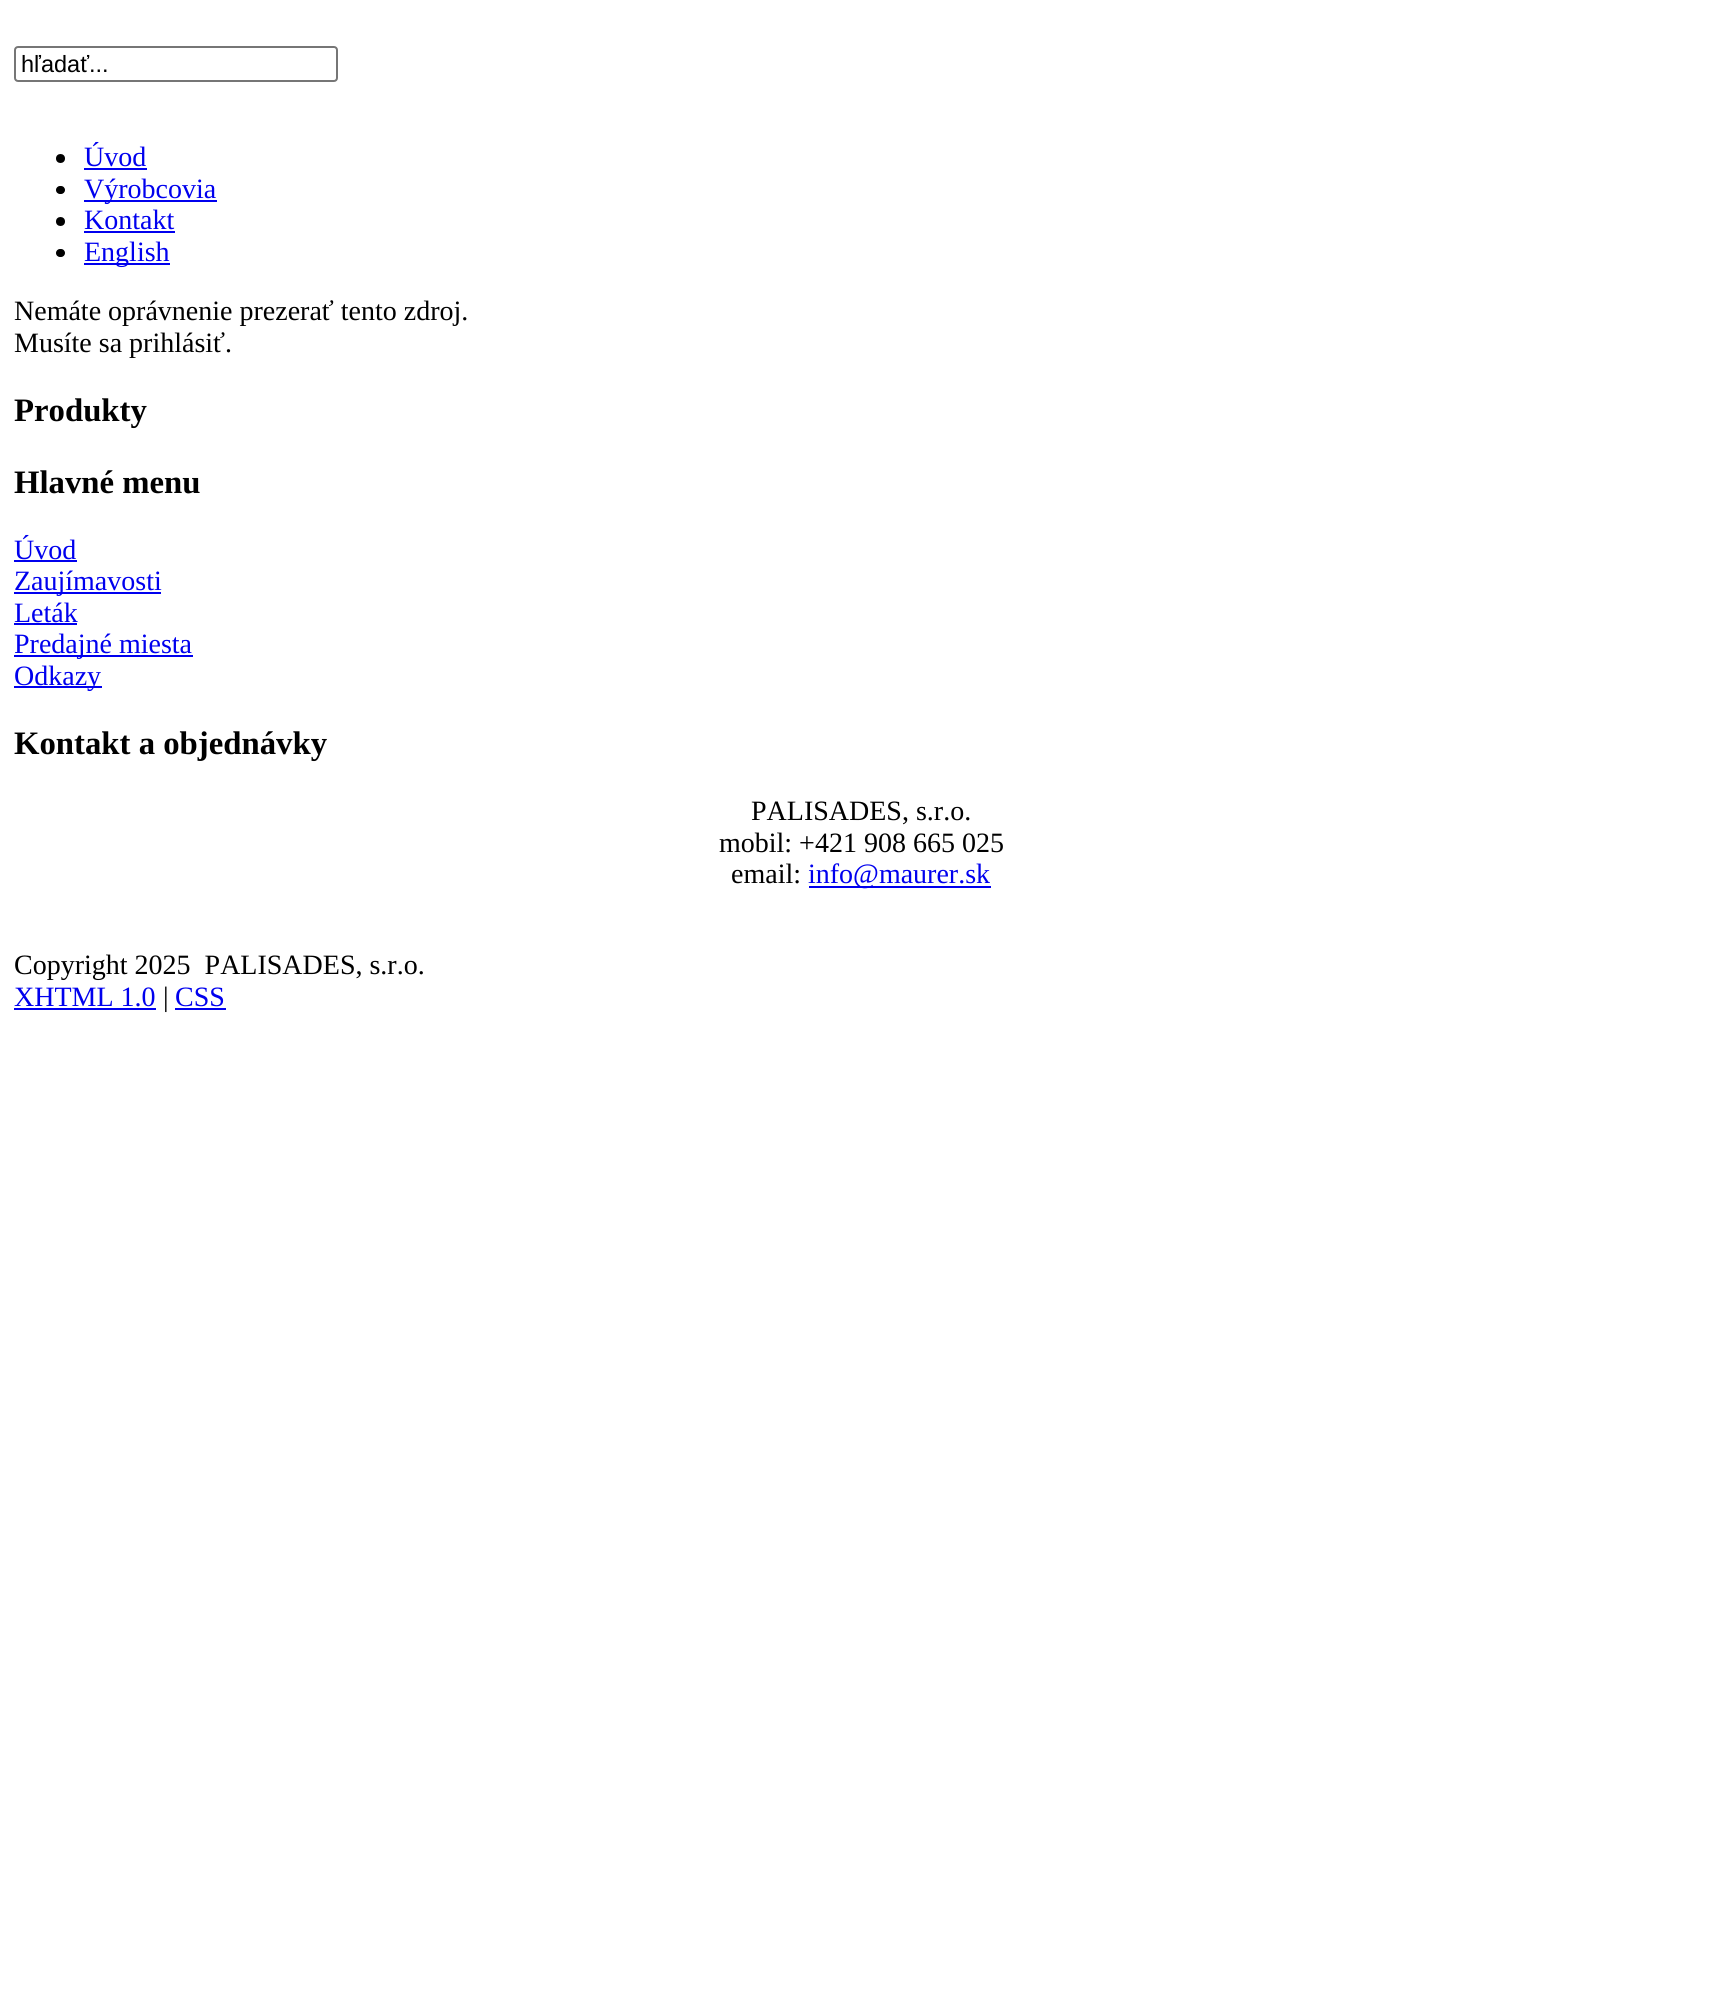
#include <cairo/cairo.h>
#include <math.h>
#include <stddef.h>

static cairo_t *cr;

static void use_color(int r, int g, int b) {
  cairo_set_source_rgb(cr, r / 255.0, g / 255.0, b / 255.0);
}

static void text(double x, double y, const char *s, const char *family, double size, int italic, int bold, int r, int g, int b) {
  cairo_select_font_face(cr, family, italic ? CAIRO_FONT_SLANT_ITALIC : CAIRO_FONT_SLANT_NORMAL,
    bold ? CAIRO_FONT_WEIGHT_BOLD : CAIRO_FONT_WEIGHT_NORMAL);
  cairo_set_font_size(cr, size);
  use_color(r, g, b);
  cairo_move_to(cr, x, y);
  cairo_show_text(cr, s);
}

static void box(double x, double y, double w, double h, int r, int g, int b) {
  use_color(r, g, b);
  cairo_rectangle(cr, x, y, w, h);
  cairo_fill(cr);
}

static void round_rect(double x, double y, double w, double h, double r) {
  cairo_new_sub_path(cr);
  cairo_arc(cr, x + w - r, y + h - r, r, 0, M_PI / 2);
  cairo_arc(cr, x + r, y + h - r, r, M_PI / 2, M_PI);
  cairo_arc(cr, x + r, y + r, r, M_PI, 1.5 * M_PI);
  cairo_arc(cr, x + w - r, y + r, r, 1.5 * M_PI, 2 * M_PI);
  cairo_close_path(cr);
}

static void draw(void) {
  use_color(255, 255, 255);
  cairo_paint(cr);
  round_rect(15, 47, 322, 34, 3);
  use_color(118, 118, 118);
  cairo_stroke(cr);
  use_color(0, 0, 0);
  cairo_arc(cr, 60.5, 158.5, 4.5, 0, 2 * M_PI);
  cairo_fill(cr);
  box(84, 168, 63, 2, 0, 0, 238);
  use_color(0, 0, 0);
  round_rect(56, 186, 9, 8, 4);
  cairo_fill(cr);
  box(84, 200, 133, 2, 0, 0, 238);
  use_color(0, 0, 0);
  cairo_arc(cr, 60.5, 221.5, 4.5, 0, 2 * M_PI);
  cairo_fill(cr);
  box(84, 231, 91, 2, 0, 0, 238);
  use_color(0, 0, 0);
  round_rect(56, 249, 9, 8, 4);
  cairo_fill(cr);
  box(84, 263, 86, 2, 0, 0, 238);
  box(14, 560, 63, 2, 0, 0, 238);
  box(14, 592, 147, 2, 0, 0, 238);
  box(14, 623, 63, 2, 0, 0, 238);
  box(14, 655, 179, 2, 0, 0, 238);
  box(14, 686, 88, 2, 0, 0, 238);
  box(809, 886, 182, 2, 0, 0, 238);
  box(14, 1008, 142, 2, 0, 0, 238);
  box(175, 1008, 51, 2, 0, 0, 238);
  text(21, 72, "hľadať...", "Liberation Sans", 23.5, 0, 0, 0, 0, 0);
  text(84, 166, "Úvod", "Liberation Serif", 28, 0, 0, 0, 0, 238);
  text(84, 198, "Výrobcovia", "Liberation Serif", 28, 0, 0, 0, 0, 238);
  text(84, 229, "Kontakt", "Liberation Serif", 28, 0, 0, 0, 0, 238);
  text(84, 261, "English", "Liberation Serif", 28, 0, 0, 0, 0, 238);
  text(14, 320, "Nemáte oprávnenie prezerať tento zdroj.", "Liberation Serif", 28, 0, 0, 0, 0, 0);
  text(14, 352, "Musíte sa prihlásiť.", "Liberation Serif", 28, 0, 0, 0, 0, 0);
  text(14, 421, "Produkty", "Liberation Serif", 32.75, 0, 1, 0, 0, 0);
  text(14, 493, "Hlavné menu", "Liberation Serif", 32.75, 0, 1, 0, 0, 0);
  text(14, 559, "Úvod", "Liberation Serif", 28, 0, 0, 0, 0, 238);
  text(14, 590, "Zaujímavosti", "Liberation Serif", 28, 0, 0, 0, 0, 238);
  text(14, 622, "Leták", "Liberation Serif", 28, 0, 0, 0, 0, 238);
  text(14, 653, "Predajné miesta", "Liberation Serif", 28, 0, 0, 0, 0, 238);
  text(14, 685, "Odkazy", "Liberation Serif", 28, 0, 0, 0, 0, 238);
  text(14, 754, "Kontakt a objednávky", "Liberation Serif", 32.75, 0, 1, 0, 0, 0);
  text(751, 820, "PALISADES, s.r.o.", "Liberation Serif", 28, 0, 0, 0, 0, 0);
  text(719, 852, "mobil: +421 908 665 025", "Liberation Serif", 28, 0, 0, 0, 0, 0);
  text(731, 883, "email:", "Liberation Serif", 28, 0, 0, 0, 0, 0);
  text(808, 883, "info@maurer.sk", "Liberation Serif", 28, 0, 0, 0, 0, 238);
  text(14, 974, "Copyright 2025  PALISADES, s.r.o.", "Liberation Serif", 28, 0, 0, 0, 0, 0);
  text(14, 1006, "XHTML 1.0", "Liberation Serif", 28, 0, 0, 0, 0, 238);
  text(163, 1006, "|", "Liberation Serif", 28, 0, 0, 0, 0, 0);
  text(175, 1006, "CSS", "Liberation Serif", 28, 0, 0, 0, 0, 238);
}

int main(void) {
  cairo_surface_t *surface = cairo_image_surface_create(CAIRO_FORMAT_RGB24, 1722, 1998);
  cr = cairo_create(surface);
  cairo_font_options_t *options = cairo_font_options_create();
  cairo_font_options_set_hint_metrics(options, CAIRO_HINT_METRICS_OFF);
  cairo_font_options_set_hint_style(options, CAIRO_HINT_STYLE_NONE);
  cairo_set_font_options(cr, options);
  cairo_set_miter_limit(cr, 4);
  draw();
  cairo_surface_write_to_png(surface, "out.png");
  cairo_font_options_destroy(options);
  cairo_destroy(cr);
  cairo_surface_destroy(surface);
  return 0;
}
